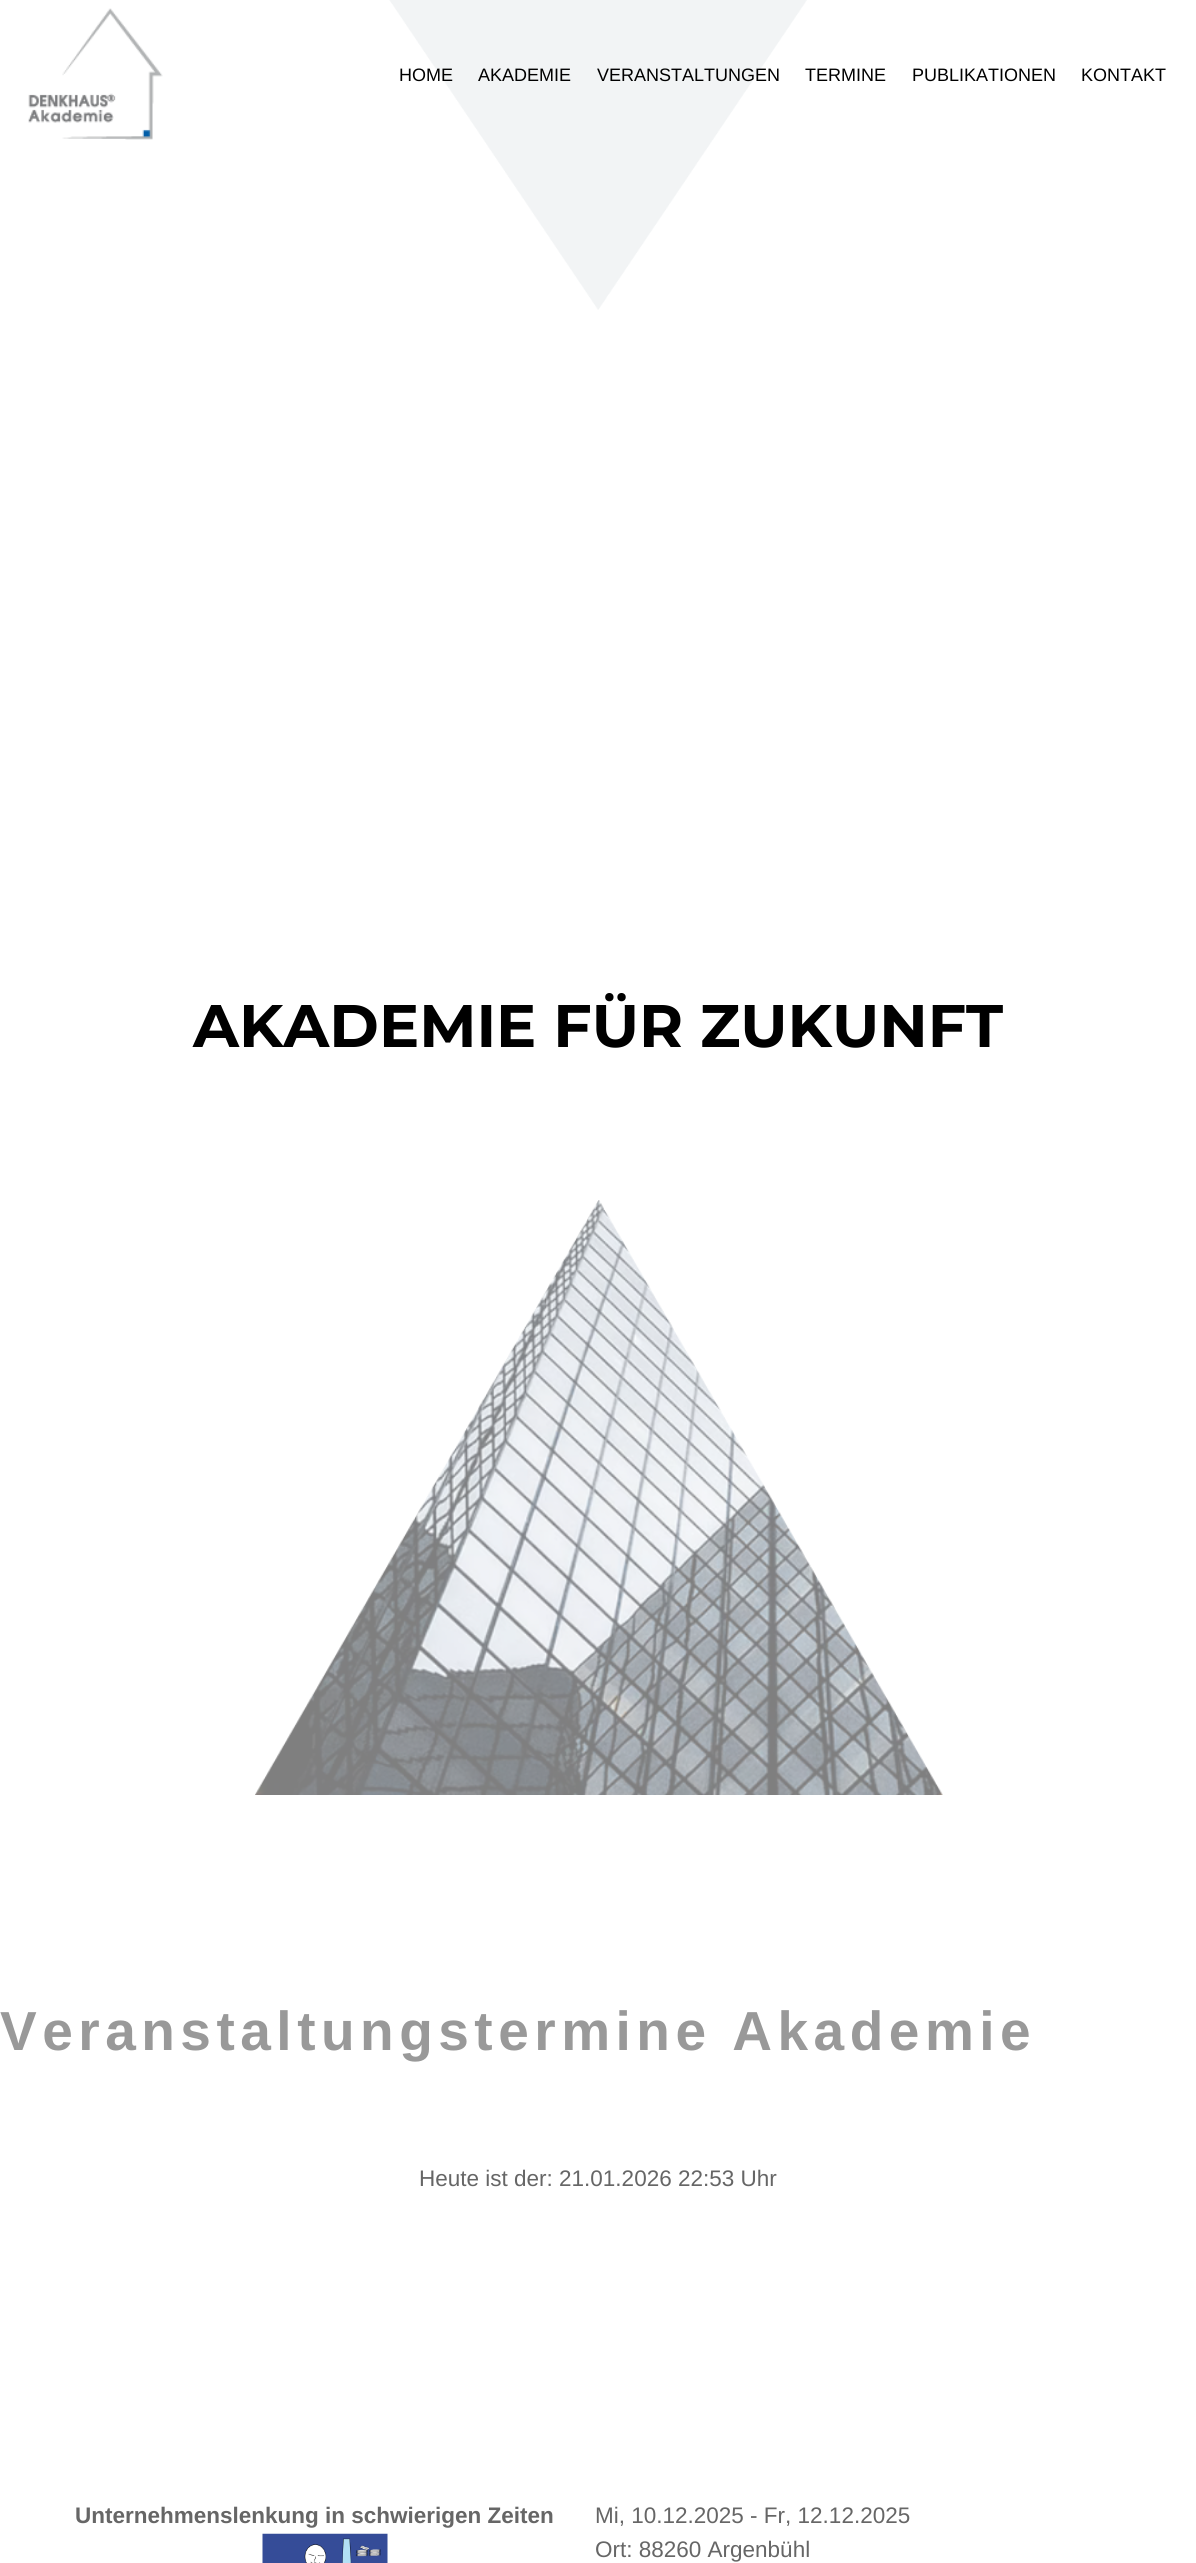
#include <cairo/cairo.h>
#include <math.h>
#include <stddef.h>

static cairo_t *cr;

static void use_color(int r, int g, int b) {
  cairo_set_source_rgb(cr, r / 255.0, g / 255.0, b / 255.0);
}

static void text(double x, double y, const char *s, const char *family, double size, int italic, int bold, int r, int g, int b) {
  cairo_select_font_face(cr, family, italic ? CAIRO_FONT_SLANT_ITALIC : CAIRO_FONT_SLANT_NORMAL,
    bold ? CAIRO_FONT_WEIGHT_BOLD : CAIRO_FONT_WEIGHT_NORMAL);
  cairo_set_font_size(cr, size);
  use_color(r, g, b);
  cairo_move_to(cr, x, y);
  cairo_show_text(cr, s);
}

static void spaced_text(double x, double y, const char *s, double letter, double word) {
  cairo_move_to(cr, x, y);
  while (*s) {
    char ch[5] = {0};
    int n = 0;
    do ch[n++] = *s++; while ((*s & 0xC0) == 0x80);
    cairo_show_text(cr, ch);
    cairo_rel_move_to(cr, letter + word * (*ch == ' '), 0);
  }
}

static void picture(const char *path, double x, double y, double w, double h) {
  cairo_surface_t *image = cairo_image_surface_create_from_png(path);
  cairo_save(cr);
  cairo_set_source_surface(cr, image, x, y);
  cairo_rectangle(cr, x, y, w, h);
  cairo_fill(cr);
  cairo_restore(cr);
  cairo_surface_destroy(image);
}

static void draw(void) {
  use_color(255, 255, 255);
  cairo_paint(cr);
  picture("img_01.png", 389, 0, 418, 310);
  picture("img_02.png", 28, 8, 135, 132);
  picture("img_03.png", 255, 1200, 688, 595);
  picture("img_04.png", 262, 2533, 126, 30);
  text(399, 81, "HOME", "Liberation Sans", 18, 0, 0, 0, 0, 0);
  text(478, 81, "AKADEMIE", "Liberation Sans", 18, 0, 0, 0, 0, 0);
  text(597, 81, "VERANSTALTUNGEN", "Liberation Sans", 18, 0, 0, 0, 0, 0);
  text(805, 81, "TERMINE", "Liberation Sans", 18, 0, 0, 0, 0, 0);
  text(912, 81, "PUBLIKATIONEN", "Liberation Sans", 18, 0, 0, 0, 0, 0);
  text(1081, 81, "KONTAKT", "Liberation Sans", 18, 0, 0, 0, 0, 0);
  text(193, 1047, "AKADEMIE FÜR ZUKUNFT", "Montserrat", 60, 0, 1, 0, 0, 0);
  cairo_select_font_face(cr, "Liberation Sans", CAIRO_FONT_SLANT_NORMAL, CAIRO_FONT_WEIGHT_BOLD);
  cairo_set_font_size(cr, 55);
  use_color(153, 153, 153);
  spaced_text(0, 2050, "Veranstaltungstermine Akademie", 5.5, 0);
  text(419, 2186, "Heute ist der: 21.01.2026 22:53 Uhr", "Liberation Sans", 22.5, 0, 0, 102, 102, 102);
  text(75, 2523, "Unternehmenslenkung in schwierigen Zeiten", "Liberation Sans", 22.5, 0, 1, 102, 102, 102);
  text(595, 2523, "Mi, 10.12.2025 - Fr, 12.12.2025", "Liberation Sans", 22.5, 0, 0, 102, 102, 102);
  text(595, 2557, "Ort: 88260 Argenbühl", "Liberation Sans", 22.5, 0, 0, 102, 102, 102);
}

int main(void) {
  cairo_surface_t *surface = cairo_image_surface_create(CAIRO_FORMAT_RGB24, 1196, 2563);
  cr = cairo_create(surface);
  cairo_font_options_t *options = cairo_font_options_create();
  cairo_font_options_set_hint_metrics(options, CAIRO_HINT_METRICS_OFF);
  cairo_font_options_set_hint_style(options, CAIRO_HINT_STYLE_NONE);
  cairo_set_font_options(cr, options);
  cairo_set_miter_limit(cr, 4);
  draw();
  cairo_surface_write_to_png(surface, "out.png");
  cairo_font_options_destroy(options);
  cairo_destroy(cr);
  cairo_surface_destroy(surface);
  return 0;
}
